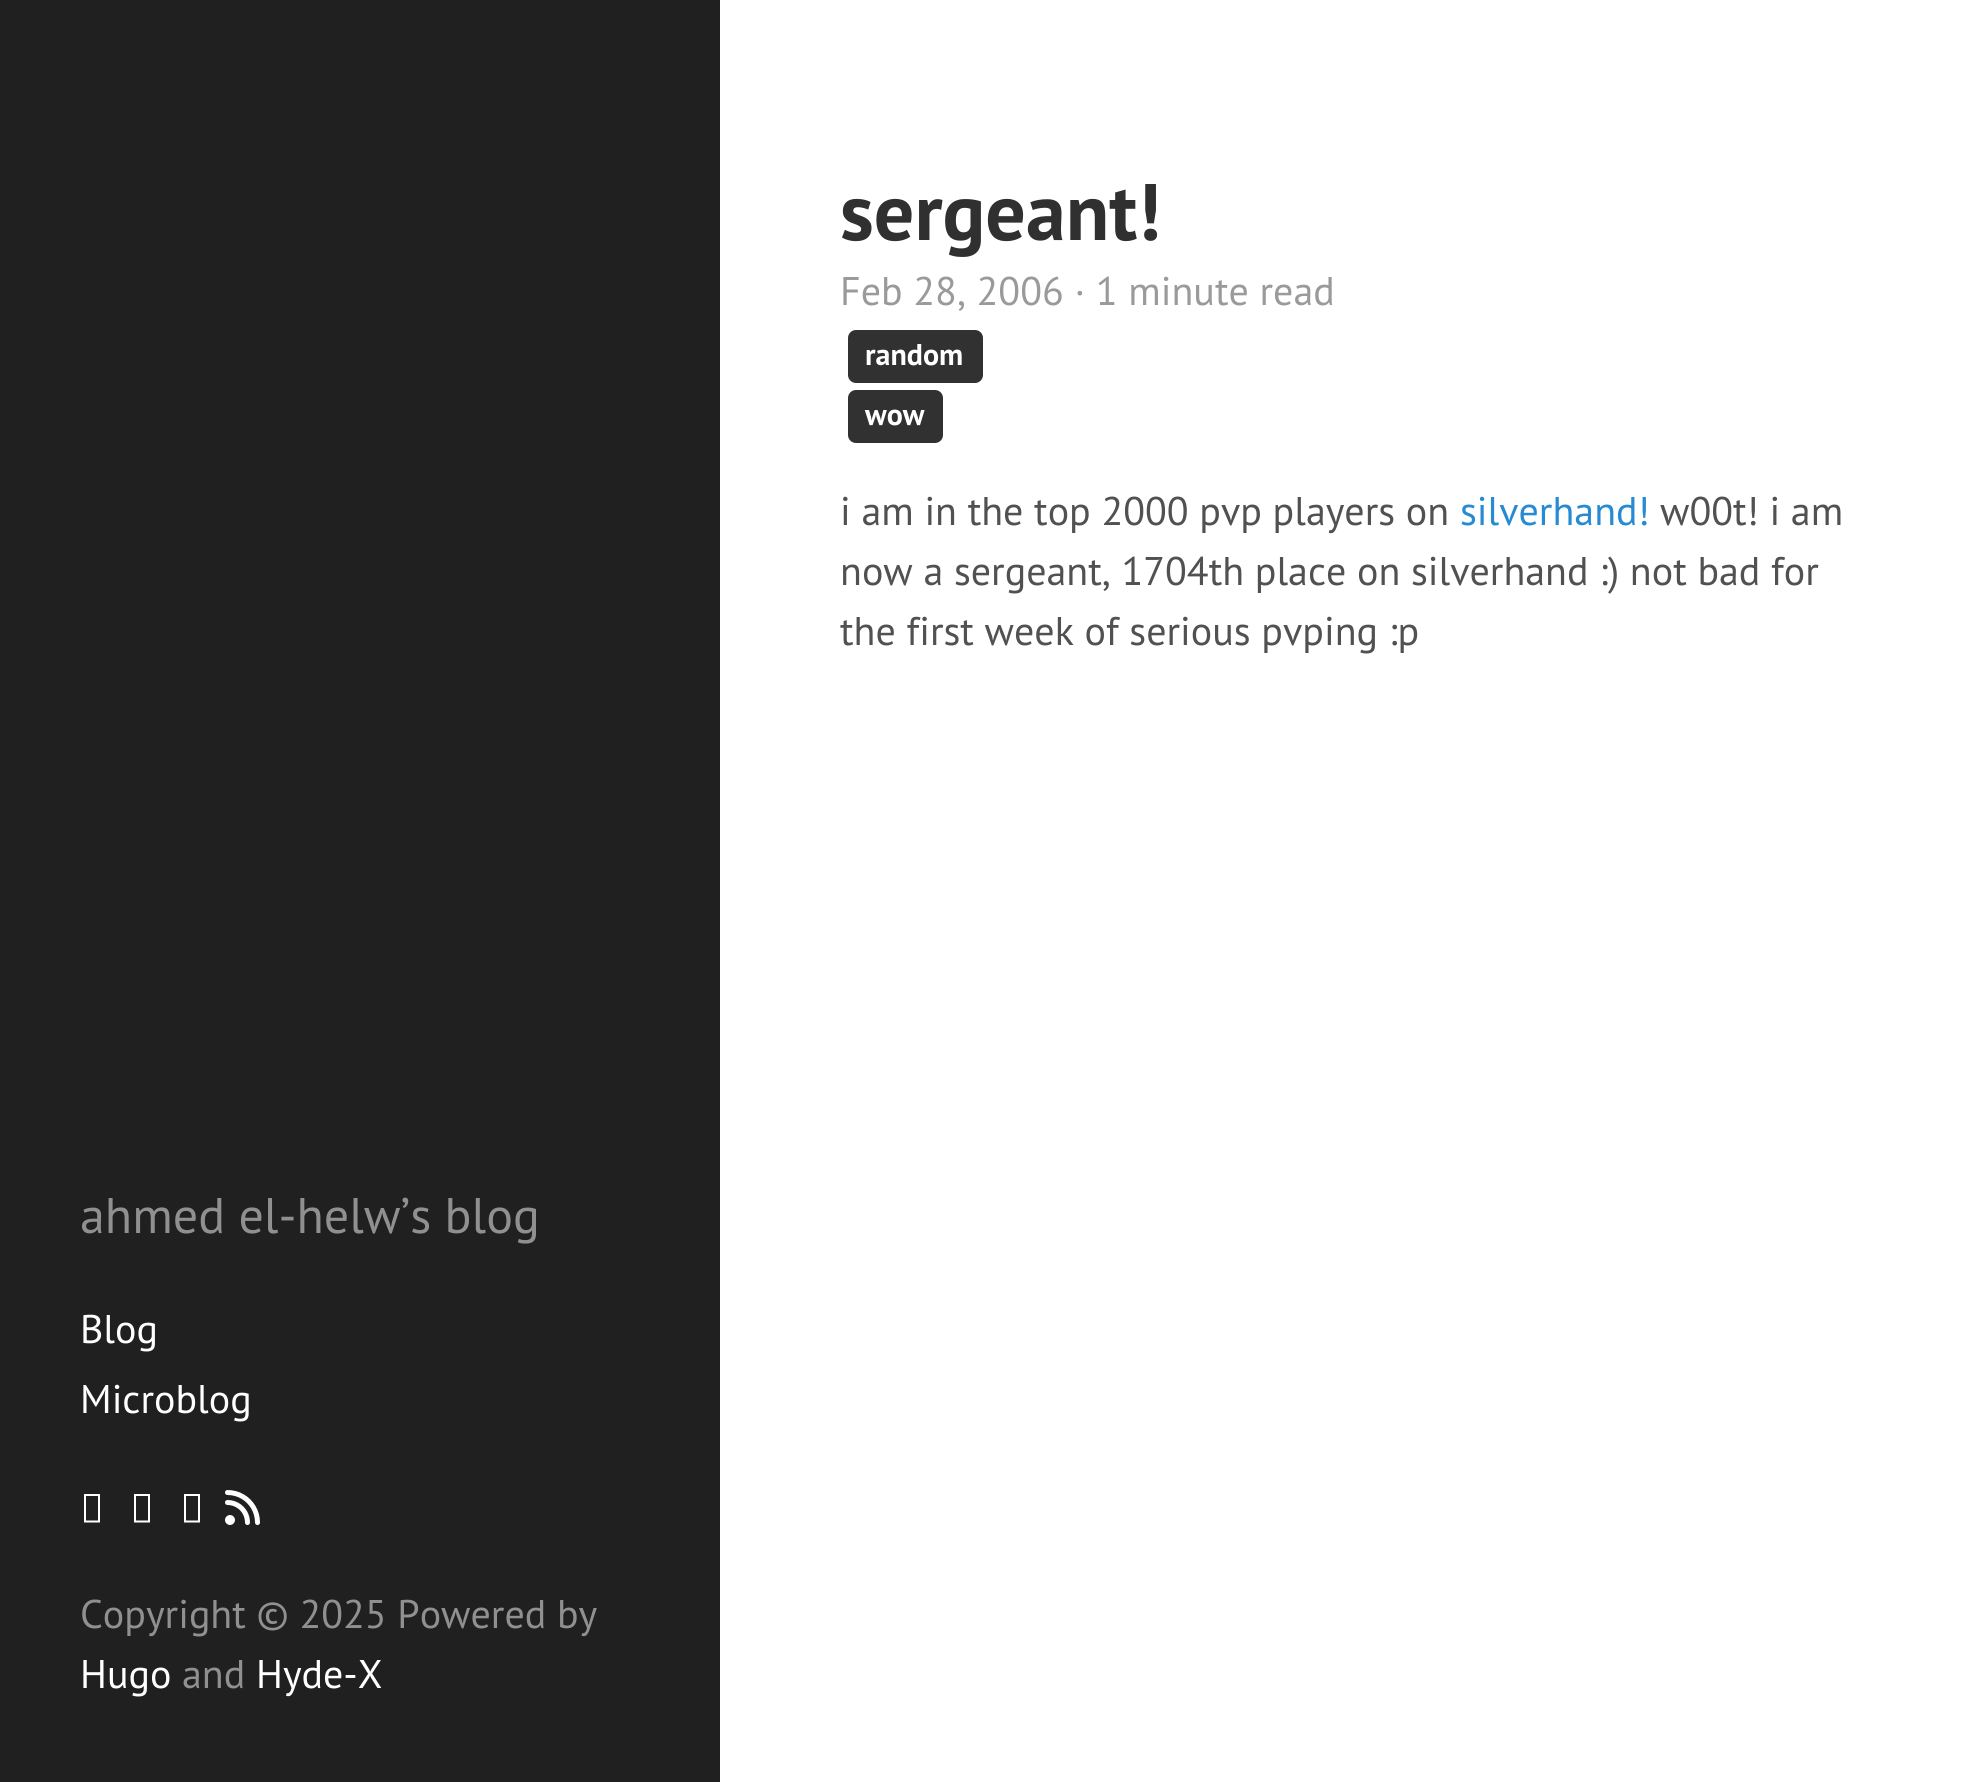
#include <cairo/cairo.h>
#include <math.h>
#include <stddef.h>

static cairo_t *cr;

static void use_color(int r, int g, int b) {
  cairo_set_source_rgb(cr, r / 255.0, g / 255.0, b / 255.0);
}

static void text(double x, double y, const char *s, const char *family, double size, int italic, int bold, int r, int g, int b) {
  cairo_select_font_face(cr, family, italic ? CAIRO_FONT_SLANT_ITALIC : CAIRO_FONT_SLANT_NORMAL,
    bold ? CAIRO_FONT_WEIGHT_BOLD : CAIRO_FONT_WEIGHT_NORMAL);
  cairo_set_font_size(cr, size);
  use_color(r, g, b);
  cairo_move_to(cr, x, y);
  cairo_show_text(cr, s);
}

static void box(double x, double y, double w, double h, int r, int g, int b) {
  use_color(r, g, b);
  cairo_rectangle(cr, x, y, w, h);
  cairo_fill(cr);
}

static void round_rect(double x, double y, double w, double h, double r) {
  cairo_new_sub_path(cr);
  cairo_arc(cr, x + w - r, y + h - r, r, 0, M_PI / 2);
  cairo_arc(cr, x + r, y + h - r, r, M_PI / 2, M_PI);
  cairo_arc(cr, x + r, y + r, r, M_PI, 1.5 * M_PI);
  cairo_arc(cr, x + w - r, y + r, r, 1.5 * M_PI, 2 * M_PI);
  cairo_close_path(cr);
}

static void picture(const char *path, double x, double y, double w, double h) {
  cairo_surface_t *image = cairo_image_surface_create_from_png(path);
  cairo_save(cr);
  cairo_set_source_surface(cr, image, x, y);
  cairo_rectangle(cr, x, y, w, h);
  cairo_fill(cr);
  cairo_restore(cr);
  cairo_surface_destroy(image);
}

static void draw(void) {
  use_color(255, 255, 255);
  cairo_paint(cr);
  use_color(49, 49, 49);
  round_rect(848, 330, 135, 53, 8);
  cairo_fill(cr);
  round_rect(848, 390, 95, 53, 8);
  cairo_fill(cr);
  box(0, 0, 720, 1782, 32, 32, 32);
  use_color(255, 255, 255);
  cairo_new_path(cr);
  cairo_move_to(cr, 84, 1522.5);
  cairo_line_to(cr, 84, 1494);
  cairo_line_to(cr, 100, 1494);
  cairo_line_to(cr, 100, 1522.5);
  cairo_close_path(cr);
  cairo_move_to(cr, 86, 1520.5);
  cairo_line_to(cr, 98, 1520.5);
  cairo_line_to(cr, 98, 1496);
  cairo_line_to(cr, 86, 1496);
  cairo_close_path(cr);
  cairo_fill(cr);
  cairo_new_path(cr);
  cairo_move_to(cr, 134, 1522.5);
  cairo_line_to(cr, 134, 1494);
  cairo_line_to(cr, 150, 1494);
  cairo_line_to(cr, 150, 1522.5);
  cairo_close_path(cr);
  cairo_move_to(cr, 136, 1520.5);
  cairo_line_to(cr, 148, 1520.5);
  cairo_line_to(cr, 148, 1496);
  cairo_line_to(cr, 136, 1496);
  cairo_close_path(cr);
  cairo_fill(cr);
  cairo_new_path(cr);
  cairo_move_to(cr, 184, 1522.5);
  cairo_line_to(cr, 184, 1494);
  cairo_line_to(cr, 200, 1494);
  cairo_line_to(cr, 200, 1522.5);
  cairo_close_path(cr);
  cairo_move_to(cr, 186, 1520.5);
  cairo_line_to(cr, 198, 1520.5);
  cairo_line_to(cr, 198, 1496);
  cairo_line_to(cr, 186, 1496);
  cairo_close_path(cr);
  cairo_fill(cr);
  picture("img_01.png", 225, 1490, 35, 35);
  text(840, 240, "sergeant!", "PT Sans", 80, 0, 1, 48, 48, 48);
  text(840, 305, "Feb 28, 2006 · 1 minute read", "PT Sans", 40, 0, 0, 154, 154, 154);
  text(865, 365, "random", "PT Sans", 30, 0, 1, 255, 255, 255);
  text(865, 425, "wow", "PT Sans", 30, 0, 1, 255, 255, 255);
  text(840, 525, "i am in the top 2000 pvp players on", "PT Sans", 40, 0, 0, 81, 81, 81);
  text(1460, 525, "silverhand!", "PT Sans", 40, 0, 0, 38, 139, 210);
  text(1660, 525, "w00t! i am", "PT Sans", 40, 0, 0, 81, 81, 81);
  text(840, 585, "now a sergeant, 1704th place on silverhand :) not bad for", "PT Sans", 40, 0, 0, 81, 81, 81);
  text(840, 645, "the first week of serious pvping :p", "PT Sans", 40, 0, 0, 81, 81, 81);
  text(80, 1233, "ahmed el-helw’s blog", "PT Sans", 50, 0, 0, 144, 144, 144);
  text(80, 1343, "Blog", "PT Sans", 40, 0, 0, 255, 255, 255);
  text(80, 1413, "Microblog", "PT Sans", 40, 0, 0, 255, 255, 255);
  text(80, 1628, "Copyright © 2025 Powered by", "PT Sans", 40, 0, 0, 144, 144, 144);
  text(80, 1688, "Hugo", "PT Sans", 40, 0, 0, 255, 255, 255);
  text(182, 1688, "and", "PT Sans", 40, 0, 0, 144, 144, 144);
  text(256, 1688, "Hyde-X", "PT Sans", 40, 0, 0, 255, 255, 255);
}

int main(void) {
  cairo_surface_t *surface = cairo_image_surface_create(CAIRO_FORMAT_RGB24, 1976, 1782);
  cr = cairo_create(surface);
  cairo_font_options_t *options = cairo_font_options_create();
  cairo_font_options_set_hint_metrics(options, CAIRO_HINT_METRICS_OFF);
  cairo_font_options_set_hint_style(options, CAIRO_HINT_STYLE_NONE);
  cairo_set_font_options(cr, options);
  cairo_set_miter_limit(cr, 4);
  draw();
  cairo_surface_write_to_png(surface, "out.png");
  cairo_font_options_destroy(options);
  cairo_destroy(cr);
  cairo_surface_destroy(surface);
  return 0;
}
